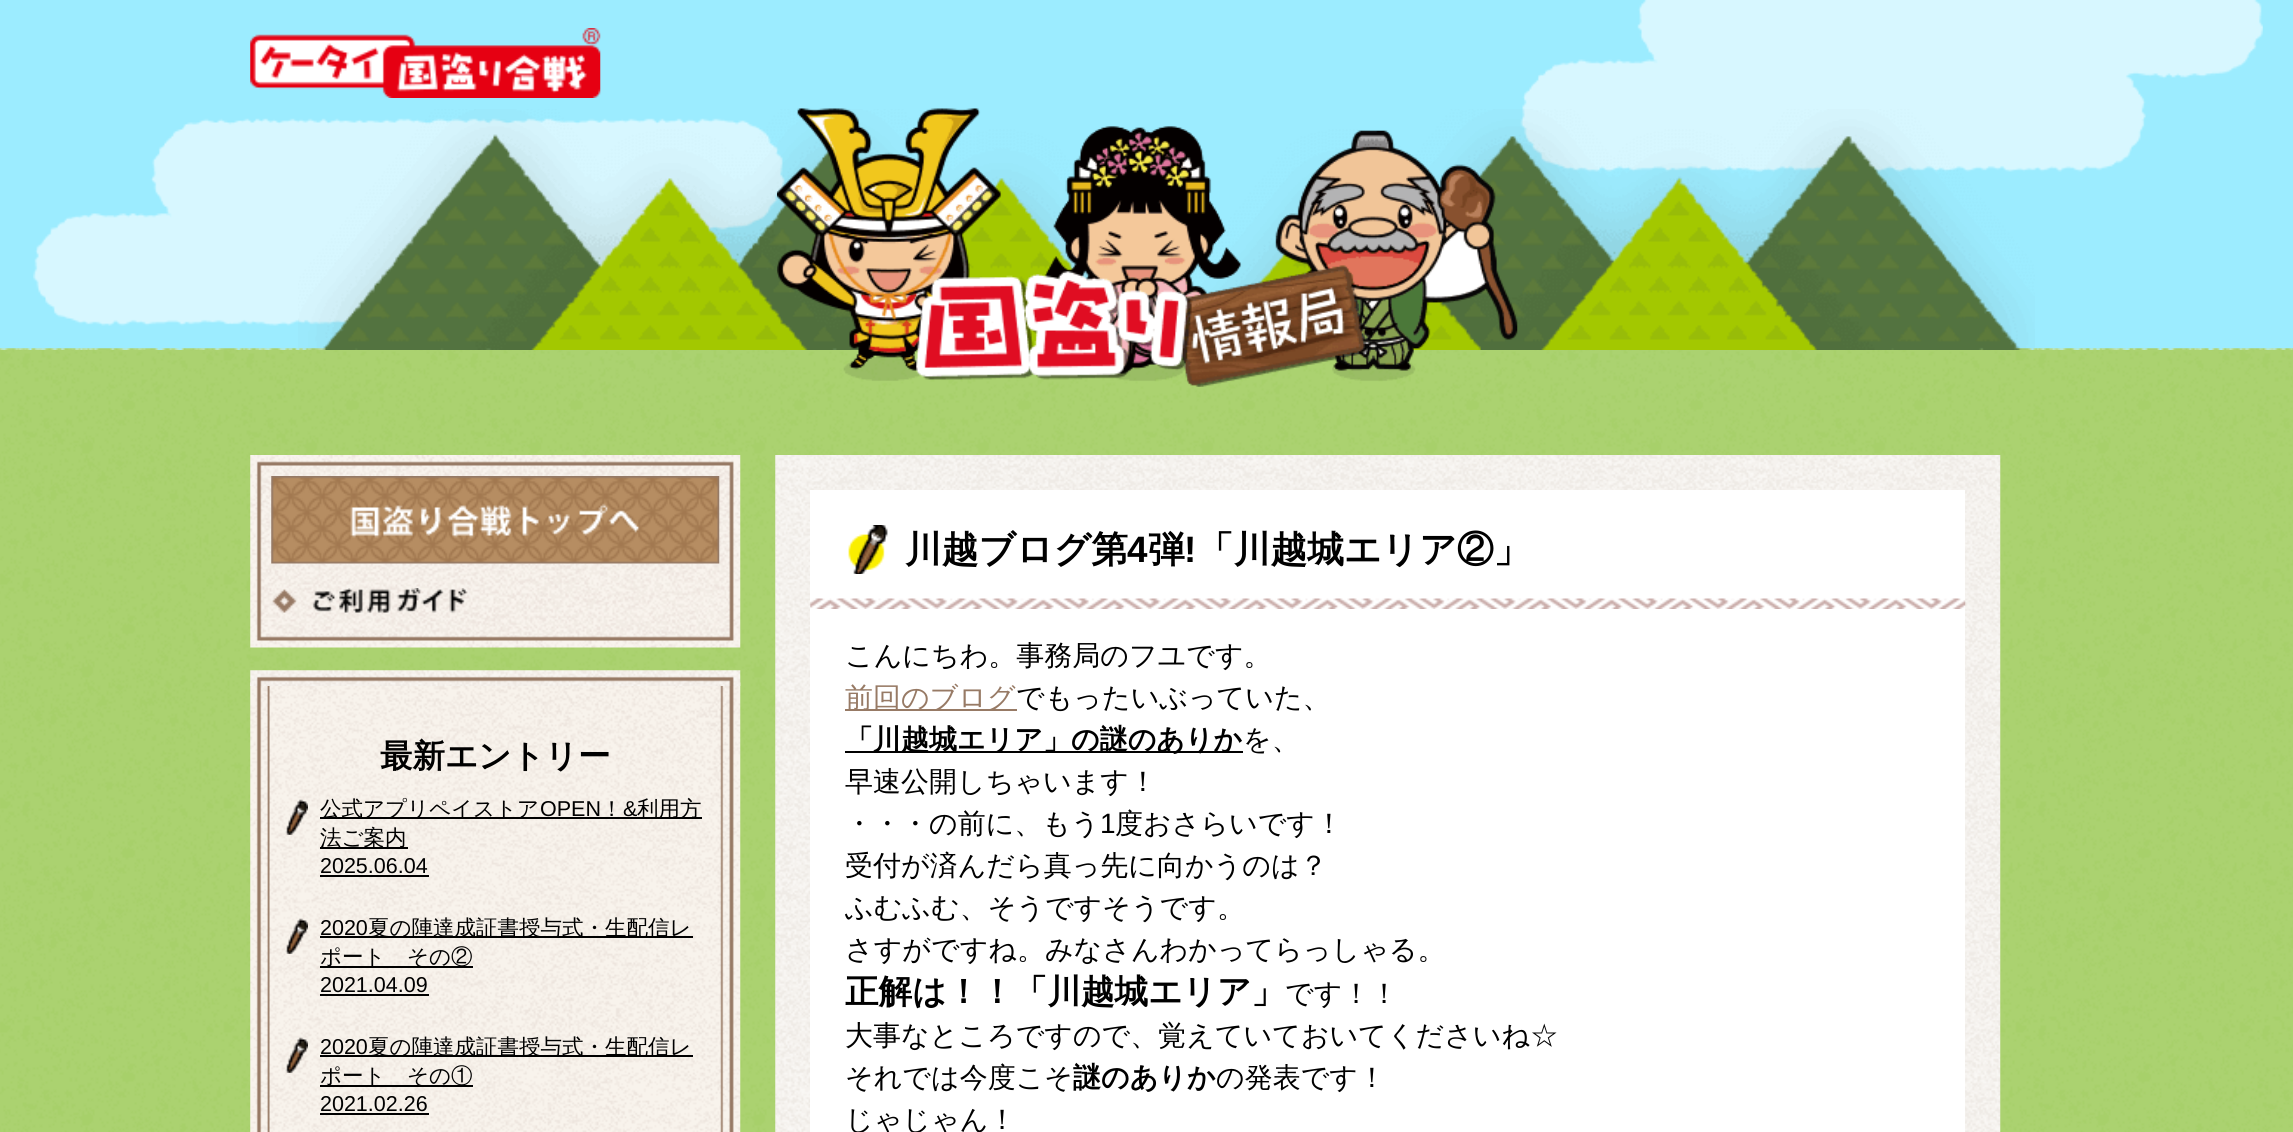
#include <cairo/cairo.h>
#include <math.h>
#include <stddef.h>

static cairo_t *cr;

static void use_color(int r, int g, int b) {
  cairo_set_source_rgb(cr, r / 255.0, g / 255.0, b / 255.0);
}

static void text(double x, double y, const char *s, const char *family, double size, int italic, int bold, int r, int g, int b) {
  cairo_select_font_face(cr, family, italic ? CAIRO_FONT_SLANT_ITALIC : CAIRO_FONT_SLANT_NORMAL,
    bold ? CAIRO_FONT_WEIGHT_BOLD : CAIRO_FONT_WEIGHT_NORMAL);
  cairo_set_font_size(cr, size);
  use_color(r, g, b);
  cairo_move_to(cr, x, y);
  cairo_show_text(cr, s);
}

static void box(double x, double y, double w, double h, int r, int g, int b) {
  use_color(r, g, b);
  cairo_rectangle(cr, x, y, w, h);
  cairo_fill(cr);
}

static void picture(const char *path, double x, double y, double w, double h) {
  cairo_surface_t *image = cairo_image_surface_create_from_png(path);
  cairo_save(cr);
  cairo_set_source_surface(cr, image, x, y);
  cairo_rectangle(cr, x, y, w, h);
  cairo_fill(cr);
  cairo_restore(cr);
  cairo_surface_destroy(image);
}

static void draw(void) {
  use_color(156, 236, 255);
  cairo_paint(cr);
  picture("img_01.png", 33, 0, 2230, 326);
  picture("img_02.png", 0, 348, 2293, 2);
  picture("img_03.png", 298, 109, 1737, 241);
  picture("img_04.png", 250, 28, 351, 70);
  picture("img_06.png", 0, 350, 2293, 782);
  picture("img_05.png", 777, 108, 741, 279);
  picture("img_07.png", 250, 455, 491, 193);
  picture("img_08.png", 271, 476, 449, 88);
  picture("img_09.png", 272, 588, 196, 25);
  picture("img_10.png", 250, 682, 491, 450);
  picture("img_11.png", 250, 670, 491, 16);
  picture("img_12.png", 285, 799, 23, 36);
  box(320, 817, 382, 2, 0, 0, 0);
  box(320, 847, 88, 2, 0, 0, 0);
  box(320, 875, 109, 2, 0, 0, 0);
  picture("img_13.png", 285, 918, 23, 36);
  box(320, 936, 373, 2, 0, 0, 0);
  box(320, 966, 153, 2, 0, 0, 0);
  box(320, 994, 109, 2, 0, 0, 0);
  picture("img_14.png", 285, 1037, 23, 36);
  box(320, 1055, 373, 2, 0, 0, 0);
  box(320, 1085, 153, 2, 0, 0, 0);
  box(320, 1113, 109, 2, 0, 0, 0);
  picture("img_15.png", 775, 455, 1226, 677);
  box(810, 490, 1155, 642, 255, 255, 255);
  picture("img_16.png", 810, 598, 1156, 11);
  picture("img_17.png", 848, 525, 40, 49);
  box(845, 709, 172, 2, 151, 122, 101);
  box(845, 751, 398, 2, 0, 0, 0);
  text(380, 767, "最新エントリー", "WenQuanYi Zen Hei", 32.5, 0, 1, 0, 0, 0);
  text(320, 816, "公式アプリペイストア", "WenQuanYi Zen Hei Medium", 21.5, 0, 0, 0, 0, 0);
  text(540, 816, "OPEN", "Liberation Sans", 21.5, 0, 0, 0, 0, 0);
  text(601, 816, "！", "WenQuanYi Zen Hei Medium", 21.5, 0, 0, 0, 0, 0);
  text(623, 816, "&", "Liberation Sans", 21.5, 0, 0, 0, 0, 0);
  text(637, 816, "利用方", "WenQuanYi Zen Hei Medium", 21.5, 0, 0, 0, 0, 0);
  text(320, 845, "法ご案内", "WenQuanYi Zen Hei Medium", 21.5, 0, 0, 0, 0, 0);
  text(320, 873, "2025.06.04", "Liberation Sans", 21.5, 0, 0, 0, 0, 0);
  text(320, 935, "2020", "Liberation Sans", 21.5, 0, 0, 0, 0, 0);
  text(368, 935, "夏の陣達成証書授与式・生配信レ", "WenQuanYi Zen Hei Medium", 21.5, 0, 0, 0, 0, 0);
  text(320, 964, "ポート　その②", "WenQuanYi Zen Hei Medium", 21.5, 0, 0, 0, 0, 0);
  text(320, 992, "2021.04.09", "Liberation Sans", 21.5, 0, 0, 0, 0, 0);
  text(320, 1054, "2020", "Liberation Sans", 21.5, 0, 0, 0, 0, 0);
  text(368, 1054, "夏の陣達成証書授与式・生配信レ", "WenQuanYi Zen Hei Medium", 21.5, 0, 0, 0, 0, 0);
  text(320, 1083, "ポート　その①", "WenQuanYi Zen Hei Medium", 21.5, 0, 0, 0, 0, 0);
  text(320, 1111, "2021.02.26", "Liberation Sans", 21.5, 0, 0, 0, 0, 0);
  text(905, 562, "川越ブログ第", "WenQuanYi Zen Hei", 36.75, 0, 1, 0, 0, 0);
  text(1127, 562, "4", "Liberation Sans", 36.75, 0, 1, 0, 0, 0);
  text(1148, 562, "弾", "WenQuanYi Zen Hei", 36.75, 0, 1, 0, 0, 0);
  text(1184, 562, "!", "Liberation Sans", 36.75, 0, 1, 0, 0, 0);
  text(1197, 562, "「川越城エリア②」", "WenQuanYi Zen Hei", 36.75, 0, 1, 0, 0, 0);
  text(845, 665, "こんにちわ。事務局のフユです。", "WenQuanYi Zen Hei Medium", 28, 0, 0, 0, 0, 0);
  text(845, 707, "前回のブログ", "WenQuanYi Zen Hei Medium", 28, 0, 0, 151, 122, 101);
  text(1016, 707, "でもったいぶっていた、", "WenQuanYi Zen Hei Medium", 28, 0, 0, 0, 0, 0);
  text(845, 749, "「川越城エリア」の謎のありか", "WenQuanYi Zen Hei", 28, 0, 1, 0, 0, 0);
  text(1243, 749, "を、", "WenQuanYi Zen Hei Medium", 28, 0, 0, 0, 0, 0);
  text(845, 791, "早速公開しちゃいます！", "WenQuanYi Zen Hei Medium", 28, 0, 0, 0, 0, 0);
  text(845, 833, "・・・の前に、もう", "WenQuanYi Zen Hei Medium", 28, 0, 0, 0, 0, 0);
  text(1100, 833, "1", "Liberation Sans", 28, 0, 0, 0, 0, 0);
  text(1115, 833, "度おさらいです！", "WenQuanYi Zen Hei Medium", 28, 0, 0, 0, 0, 0);
  text(845, 875, "受付が済んだら真っ先に向かうのは？", "WenQuanYi Zen Hei Medium", 28, 0, 0, 0, 0, 0);
  text(845, 917, "ふむふむ、そうですそうです。", "WenQuanYi Zen Hei Medium", 28, 0, 0, 0, 0, 0);
  text(845, 959, "さすがですね。みなさんわかってらっしゃる。", "WenQuanYi Zen Hei Medium", 28, 0, 0, 0, 0, 0);
  text(845, 1003, "正解は！！「川越城エリア」", "WenQuanYi Zen Hei", 33.6, 0, 1, 0, 0, 0);
  text(1285, 1003, "です！！", "WenQuanYi Zen Hei Medium", 28, 0, 0, 0, 0, 0);
  text(845, 1045, "大事なところですので、覚えていておいてくださいね☆", "WenQuanYi Zen Hei Medium", 28, 0, 0, 0, 0, 0);
  text(845, 1087, "それでは今度こそ", "WenQuanYi Zen Hei Medium", 28, 0, 0, 0, 0, 0);
  text(1073, 1087, "謎のありか", "WenQuanYi Zen Hei", 28, 0, 1, 0, 0, 0);
  text(1216, 1087, "の発表です！", "WenQuanYi Zen Hei Medium", 28, 0, 0, 0, 0, 0);
  text(845, 1129, "じゃじゃん！", "WenQuanYi Zen Hei Medium", 28, 0, 0, 0, 0, 0);
}

int main(void) {
  cairo_surface_t *surface = cairo_image_surface_create(CAIRO_FORMAT_RGB24, 2293, 1132);
  cr = cairo_create(surface);
  cairo_font_options_t *options = cairo_font_options_create();
  cairo_font_options_set_hint_metrics(options, CAIRO_HINT_METRICS_OFF);
  cairo_font_options_set_hint_style(options, CAIRO_HINT_STYLE_NONE);
  cairo_set_font_options(cr, options);
  cairo_set_miter_limit(cr, 4);
  draw();
  cairo_surface_write_to_png(surface, "out.png");
  cairo_font_options_destroy(options);
  cairo_destroy(cr);
  cairo_surface_destroy(surface);
  return 0;
}
